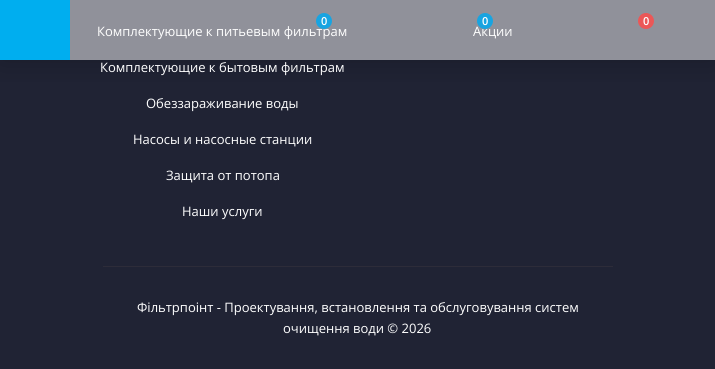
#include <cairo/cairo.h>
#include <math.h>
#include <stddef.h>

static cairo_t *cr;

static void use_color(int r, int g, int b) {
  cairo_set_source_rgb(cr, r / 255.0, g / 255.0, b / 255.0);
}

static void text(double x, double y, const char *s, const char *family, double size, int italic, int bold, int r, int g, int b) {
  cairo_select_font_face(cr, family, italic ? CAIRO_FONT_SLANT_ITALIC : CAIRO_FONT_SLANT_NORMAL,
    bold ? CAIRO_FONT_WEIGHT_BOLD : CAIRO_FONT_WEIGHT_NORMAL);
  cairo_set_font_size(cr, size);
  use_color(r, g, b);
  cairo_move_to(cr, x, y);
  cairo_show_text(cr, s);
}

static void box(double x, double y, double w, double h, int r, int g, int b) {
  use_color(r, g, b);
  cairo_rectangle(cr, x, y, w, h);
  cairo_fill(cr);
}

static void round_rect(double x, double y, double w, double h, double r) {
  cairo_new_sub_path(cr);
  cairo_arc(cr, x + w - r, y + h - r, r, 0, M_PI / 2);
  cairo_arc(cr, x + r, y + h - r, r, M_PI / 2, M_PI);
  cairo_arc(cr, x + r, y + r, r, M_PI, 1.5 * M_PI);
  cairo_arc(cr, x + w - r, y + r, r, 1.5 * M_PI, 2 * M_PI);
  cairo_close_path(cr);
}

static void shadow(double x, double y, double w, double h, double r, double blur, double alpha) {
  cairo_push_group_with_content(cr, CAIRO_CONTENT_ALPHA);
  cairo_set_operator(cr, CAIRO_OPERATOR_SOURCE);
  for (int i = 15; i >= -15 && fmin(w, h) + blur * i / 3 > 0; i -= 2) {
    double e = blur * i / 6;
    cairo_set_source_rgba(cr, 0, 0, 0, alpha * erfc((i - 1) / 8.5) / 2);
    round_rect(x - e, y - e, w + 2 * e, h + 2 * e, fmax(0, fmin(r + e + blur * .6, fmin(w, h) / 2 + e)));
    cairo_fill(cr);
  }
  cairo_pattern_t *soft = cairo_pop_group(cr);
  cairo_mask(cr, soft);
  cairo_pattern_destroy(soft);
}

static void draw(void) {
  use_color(32, 35, 52);
  cairo_paint(cr);
  box(70, 0, 645, 60, 144, 145, 154);
  cairo_save(cr);
  cairo_rectangle(cr, 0, 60, 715, 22);
  cairo_clip(cr);
  use_color(0, 0, 0);
  shadow(0, 0, 715, 60, 0, 16.5, 0.23);
  cairo_restore(cr);
  box(0, 0, 70, 60, 0, 174, 239);
  use_color(235, 87, 87);
  cairo_arc(cr, 646, 21, 8, 0, 2 * M_PI);
  cairo_fill(cr);
  box(103, 266, 510, 1, 45, 44, 57);
  text(643, 25, "0", "Open Sans SemiBold", 11, 0, 0, 255, 255, 255);
  text(97, 36, "Комплектующие к питьевым фильтрам", "Open Sans", 13, 0, 0, 255, 255, 255);
  use_color(24, 164, 225);
  cairo_new_path(cr);
  cairo_arc(cr, 324, 21, 8, 0, 2 * M_PI);
  cairo_fill(cr);
  text(321, 25, "0", "Open Sans SemiBold", 11, 0, 0, 255, 255, 255);
  text(100, 72, "Комплектующие к бытовым фильтрам", "Open Sans", 13, 0, 0, 255, 255, 255);
  text(146, 108, "Обеззараживание воды", "Open Sans", 13, 0, 0, 255, 255, 255);
  text(133, 144, "Насосы и насосные станции", "Open Sans", 13, 0, 0, 255, 255, 255);
  text(166, 180, "Защита от потопа", "Open Sans", 13, 0, 0, 255, 255, 255);
  text(182, 216, "Наши услуги", "Open Sans", 13, 0, 0, 255, 255, 255);
  text(473, 36, "Акции", "Open Sans", 13, 0, 0, 255, 255, 255);
  use_color(24, 164, 225);
  cairo_new_path(cr);
  cairo_arc(cr, 485, 21, 8, 0, 2 * M_PI);
  cairo_fill(cr);
  text(482, 25, "0", "Open Sans SemiBold", 11, 0, 0, 255, 255, 255);
  text(137, 312, "Фільтрпоінт - Проектування, встановлення та обслуговування систем", "Open Sans", 13, 0, 0, 255, 255, 255);
  text(283, 333, "очищення води © 2026", "Open Sans", 13, 0, 0, 255, 255, 255);
}

int main(void) {
  cairo_surface_t *surface = cairo_image_surface_create(CAIRO_FORMAT_RGB24, 715, 369);
  cr = cairo_create(surface);
  cairo_font_options_t *options = cairo_font_options_create();
  cairo_font_options_set_hint_metrics(options, CAIRO_HINT_METRICS_OFF);
  cairo_font_options_set_hint_style(options, CAIRO_HINT_STYLE_NONE);
  cairo_set_font_options(cr, options);
  cairo_set_miter_limit(cr, 4);
  draw();
  cairo_surface_write_to_png(surface, "out.png");
  cairo_font_options_destroy(options);
  cairo_destroy(cr);
  cairo_surface_destroy(surface);
  return 0;
}
